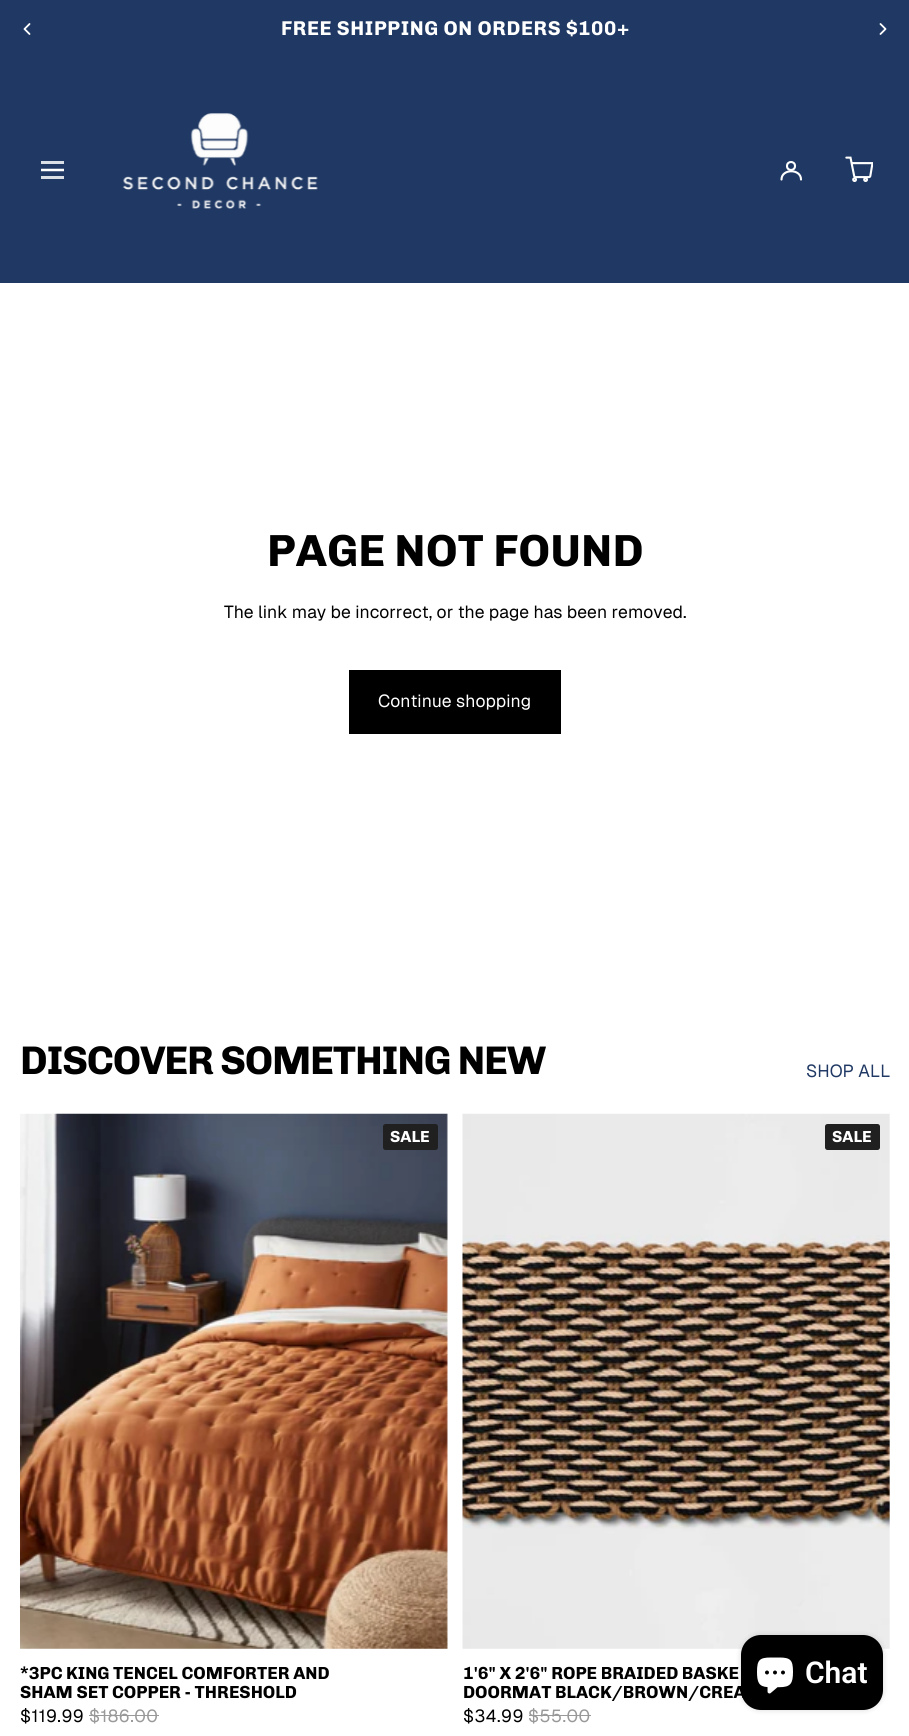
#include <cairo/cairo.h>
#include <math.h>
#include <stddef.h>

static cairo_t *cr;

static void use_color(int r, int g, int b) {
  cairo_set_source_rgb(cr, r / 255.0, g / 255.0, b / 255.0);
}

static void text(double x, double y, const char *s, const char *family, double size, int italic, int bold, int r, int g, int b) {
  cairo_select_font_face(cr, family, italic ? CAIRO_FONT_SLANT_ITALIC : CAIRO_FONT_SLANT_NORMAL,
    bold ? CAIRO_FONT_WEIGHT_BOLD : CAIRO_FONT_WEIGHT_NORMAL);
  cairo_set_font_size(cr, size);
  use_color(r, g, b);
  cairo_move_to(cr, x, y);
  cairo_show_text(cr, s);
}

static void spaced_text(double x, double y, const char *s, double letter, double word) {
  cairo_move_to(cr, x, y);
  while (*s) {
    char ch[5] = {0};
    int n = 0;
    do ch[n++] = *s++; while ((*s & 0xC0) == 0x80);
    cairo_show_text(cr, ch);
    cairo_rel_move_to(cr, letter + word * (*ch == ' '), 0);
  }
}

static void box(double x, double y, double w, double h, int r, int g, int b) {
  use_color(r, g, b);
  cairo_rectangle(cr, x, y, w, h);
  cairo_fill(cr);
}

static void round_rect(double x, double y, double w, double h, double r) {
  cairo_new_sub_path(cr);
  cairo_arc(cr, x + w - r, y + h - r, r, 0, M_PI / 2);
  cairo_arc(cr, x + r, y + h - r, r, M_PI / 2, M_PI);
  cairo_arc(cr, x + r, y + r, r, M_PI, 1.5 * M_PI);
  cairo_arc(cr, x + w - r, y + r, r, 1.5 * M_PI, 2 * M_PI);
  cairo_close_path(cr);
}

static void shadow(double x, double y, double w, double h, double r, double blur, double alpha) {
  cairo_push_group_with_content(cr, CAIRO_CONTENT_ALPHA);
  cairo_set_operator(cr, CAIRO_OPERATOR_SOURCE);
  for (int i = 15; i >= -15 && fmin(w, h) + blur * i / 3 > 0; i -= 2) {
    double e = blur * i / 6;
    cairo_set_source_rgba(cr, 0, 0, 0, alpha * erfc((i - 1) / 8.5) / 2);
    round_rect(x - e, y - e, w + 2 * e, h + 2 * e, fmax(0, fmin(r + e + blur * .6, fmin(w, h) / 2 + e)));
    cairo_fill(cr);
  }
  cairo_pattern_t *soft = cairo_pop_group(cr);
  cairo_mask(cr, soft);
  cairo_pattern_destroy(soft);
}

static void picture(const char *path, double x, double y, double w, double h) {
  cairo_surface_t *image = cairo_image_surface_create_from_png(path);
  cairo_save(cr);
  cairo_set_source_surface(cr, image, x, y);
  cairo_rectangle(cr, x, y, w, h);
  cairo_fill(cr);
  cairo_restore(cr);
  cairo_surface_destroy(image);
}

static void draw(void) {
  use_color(255, 255, 255);
  cairo_paint(cr);
  box(0, 0, 909, 283, 32, 57, 100);
  cairo_new_path(cr);
  cairo_move_to(cr, 29.5, 24);
  cairo_line_to(cr, 24.5, 29);
  cairo_line_to(cr, 29.5, 34);
  use_color(255, 255, 255);
  cairo_set_line_width(cr, 1.8);
  cairo_set_line_cap(cr, CAIRO_LINE_CAP_ROUND);
  cairo_set_line_join(cr, CAIRO_LINE_JOIN_ROUND);
  cairo_stroke(cr);
  cairo_new_path(cr);
  cairo_move_to(cr, 880.5, 24);
  cairo_line_to(cr, 885.5, 29);
  cairo_line_to(cr, 880.5, 34);
  cairo_stroke(cr);
  box(41, 161, 23, 3, 218, 222, 229);
  cairo_new_path(cr);
  cairo_move_to(cr, 41, 170);
  cairo_line_to(cr, 64, 170);
  use_color(255, 255, 255);
  cairo_set_line_width(cr, 2.5);
  cairo_set_line_cap(cr, CAIRO_LINE_CAP_BUTT);
  cairo_set_line_join(cr, CAIRO_LINE_JOIN_MITER);
  cairo_stroke(cr);
  box(41, 176, 23, 3, 218, 222, 229);
  picture("img_01.png", 122, 113, 196, 96);
  cairo_arc(cr, 791, 166, 4, 0, 2 * M_PI);
  use_color(255, 255, 255);
  cairo_set_line_width(cr, 2.1);
  cairo_stroke(cr);
  cairo_new_path(cr);
  cairo_move_to(cr, 781.5, 179.5);
  cairo_curve_to(cr, 781.5, 168.5, 801, 168.5, 801, 179.5);
  cairo_set_line_cap(cr, CAIRO_LINE_CAP_ROUND);
  cairo_stroke(cr);
  picture("img_02.png", 845, 156, 28, 26);
  box(349, 670, 212, 64, 0, 0, 0);
  picture("img_03.png", 20, 1113, 428, 536);
  use_color(32, 32, 32);
  round_rect(383, 1124, 55, 26, 2.5);
  cairo_fill(cr);
  box(89, 1715, 70, 1, 153, 153, 153);
  picture("img_04.png", 462, 1113, 428, 536);
  use_color(32, 32, 32);
  round_rect(825, 1124, 55, 26, 2.5);
  cairo_fill(cr);
  box(529, 1715, 62, 1, 153, 153, 153);
  use_color(0, 0, 0);
  shadow(741, 1635, 142, 75, 20, 3, 0.15);
  use_color(0, 0, 0);
  round_rect(741, 1635, 142, 75, 20);
  cairo_fill(cr);
  picture("img_05.png", 757, 1657, 36, 37);
  cairo_select_font_face(cr, "Chivo", CAIRO_FONT_SLANT_NORMAL, CAIRO_FONT_WEIGHT_BOLD);
  cairo_set_font_size(cr, 20);
  use_color(255, 255, 255);
  spaced_text(281, 35, "FREE SHIPPING ON ORDERS $100+", 0.6, 0);
  text(267, 566, "PAGE NOT FOUND", "Chivo", 45, 0, 1, 0, 0, 0);
  text(224, 618, "The link may be incorrect, or the page has been removed.", "Geist", 17.5, 0, 0, 0, 0, 0);
  text(378, 707, "Continue shopping", "Geist", 17.5, 0, 0, 255, 255, 255);
  cairo_select_font_face(cr, "Chivo", CAIRO_FONT_SLANT_NORMAL, CAIRO_FONT_WEIGHT_BOLD);
  cairo_set_font_size(cr, 40);
  use_color(0, 0, 0);
  spaced_text(20, 1074, "DISCOVER SOMETHING NEW", -1.2, 0);
  text(806, 1077, "SHOP ALL", "Geist", 17.5, 0, 0, 32, 57, 100);
  text(390, 1142, "SALE", "Chivo", 16, 0, 1, 255, 255, 255);
  text(20, 1679, "*3PC KING TENCEL COMFORTER AND", "Chivo", 17.5, 0, 1, 0, 0, 0);
  text(20, 1698, "SHAM SET COPPER - THRESHOLD", "Chivo", 17.5, 0, 1, 0, 0, 0);
  cairo_select_font_face(cr, "Geist", CAIRO_FONT_SLANT_NORMAL, CAIRO_FONT_WEIGHT_NORMAL);
  spaced_text(20, 1722, "$119.99", 0.5, 0);
  use_color(153, 153, 153);
  spaced_text(89, 1722, "$186.00", 0.5, 0);
  text(832, 1142, "SALE", "Chivo", 16, 0, 1, 255, 255, 255);
  text(463, 1679, "1'6\" X 2'6\" ROPE BRAIDED BASKE", "Chivo", 17.5, 0, 1, 0, 0, 0);
  text(463, 1698, "DOORMAT BLACK/BROWN/CREA", "Chivo", 17.5, 0, 1, 0, 0, 0);
  cairo_select_font_face(cr, "Geist", CAIRO_FONT_SLANT_NORMAL, CAIRO_FONT_WEIGHT_NORMAL);
  spaced_text(463, 1722, "$34.99", 0.5, 0);
  use_color(153, 153, 153);
  spaced_text(528, 1722, "$55.00", 0.5, 0);
  text(805, 1683, "Chat", "Roboto SemiBold", 30, 0, 0, 255, 255, 255);
}

int main(void) {
  cairo_surface_t *surface = cairo_image_surface_create(CAIRO_FORMAT_RGB24, 909, 1736);
  cr = cairo_create(surface);
  cairo_font_options_t *options = cairo_font_options_create();
  cairo_font_options_set_hint_metrics(options, CAIRO_HINT_METRICS_OFF);
  cairo_font_options_set_hint_style(options, CAIRO_HINT_STYLE_NONE);
  cairo_set_font_options(cr, options);
  cairo_set_miter_limit(cr, 4);
  draw();
  cairo_surface_write_to_png(surface, "out.png");
  cairo_font_options_destroy(options);
  cairo_destroy(cr);
  cairo_surface_destroy(surface);
  return 0;
}
